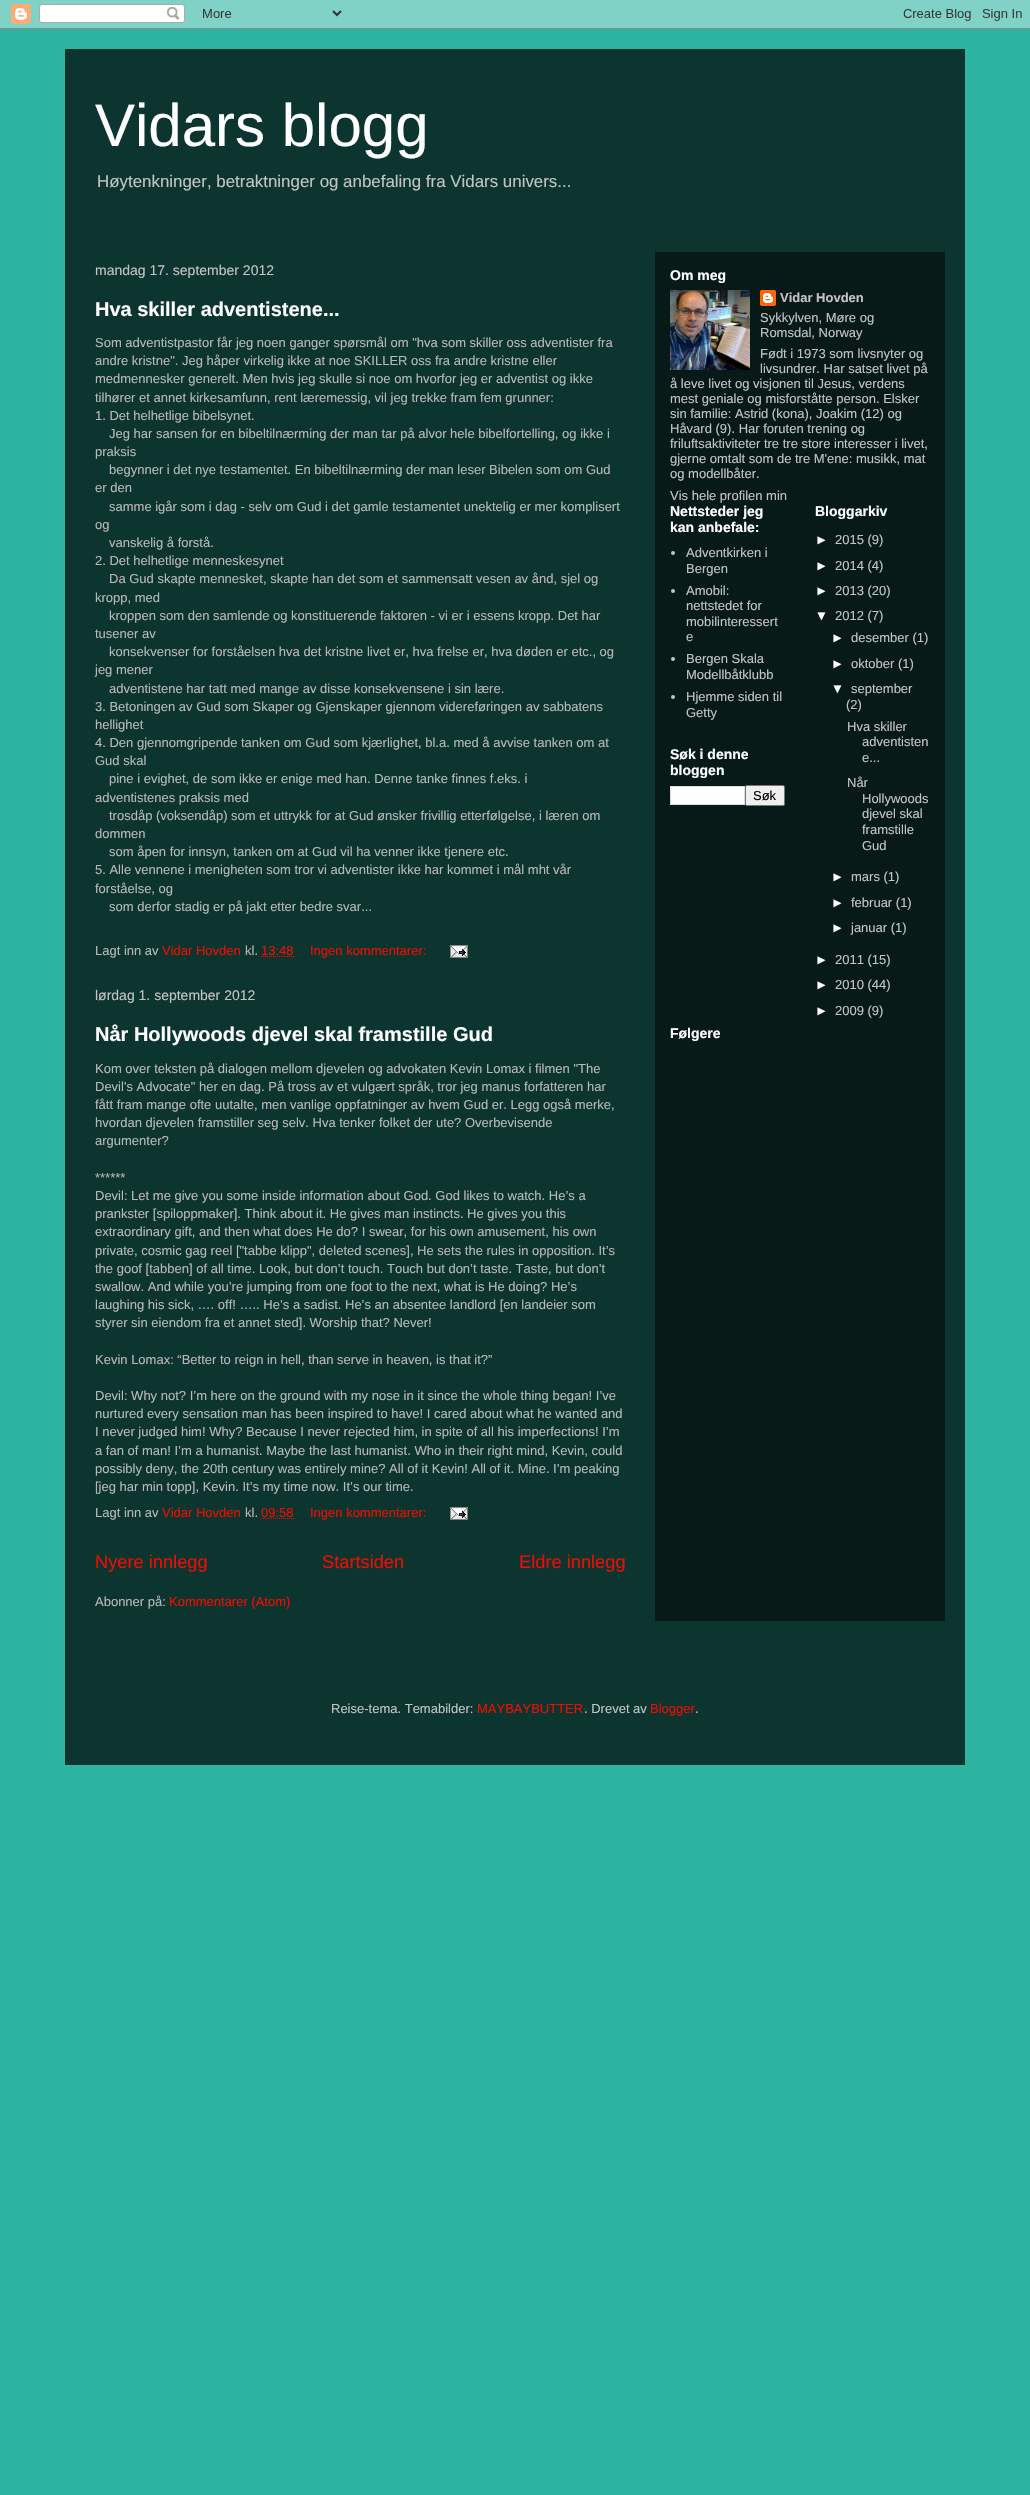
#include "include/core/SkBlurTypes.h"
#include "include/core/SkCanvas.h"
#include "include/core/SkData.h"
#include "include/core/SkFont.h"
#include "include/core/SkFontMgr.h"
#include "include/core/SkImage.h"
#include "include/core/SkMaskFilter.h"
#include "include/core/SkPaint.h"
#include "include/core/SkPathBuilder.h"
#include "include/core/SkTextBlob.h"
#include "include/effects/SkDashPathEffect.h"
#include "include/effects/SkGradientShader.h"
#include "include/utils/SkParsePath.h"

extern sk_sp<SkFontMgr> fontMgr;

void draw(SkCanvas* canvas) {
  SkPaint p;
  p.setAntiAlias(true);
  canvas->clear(SkColorSetRGB(44, 180, 160));
  canvas->drawImageRect(SkImages::DeferredFromEncodedData(SkData::MakeFromFileName("images/1.png")), SkRect::MakeLTRB(0, 0, 1030, 29), SkSamplingOptions());
  p.setColor(SkColorSetRGB(13, 53, 48));
  canvas->drawRect(SkRect::MakeLTRB(65, 49, 965, 1765), p);
  p.setColor(SkColorSetRGB(7, 26, 24));
  canvas->drawRect(SkRect::MakeLTRB(655, 252, 945, 1621), p);
  p.setStyle(SkPaint::kStroke_Style);
  p.setStrokeWidth(1);
  p.setColor(SkColorSetRGB(243, 10, 0));
  p.setPathEffect(SkDashPathEffect::Make({{1, 1}}, 0));
  canvas->drawPath(SkPathBuilder().moveTo(261, 956.5f).lineTo(294, 956.5f).detach(), p);
  p.setPathEffect(nullptr);
  canvas->drawImageRect(SkImages::DeferredFromEncodedData(SkData::MakeFromFileName("images/2.png")), SkRect::MakeLTRB(450, 945, 468, 958), SkSamplingOptions());
  p.setPathEffect(SkDashPathEffect::Make({{1, 1}}, 0));
  canvas->drawPath(SkPathBuilder().moveTo(261, 1518.5f).lineTo(294, 1518.5f).detach(), p);
  p.setPathEffect(nullptr);
  canvas->drawImageRect(SkImages::DeferredFromEncodedData(SkData::MakeFromFileName("images/2.png")), SkRect::MakeLTRB(450, 1507, 468, 1520), SkSamplingOptions());
  canvas->drawImageRect(SkImages::DeferredFromEncodedData(SkData::MakeFromFileName("images/3.png")), SkRect::MakeLTRB(670, 290, 750, 370), SkSamplingOptions());
  canvas->drawImageRect(SkImages::DeferredFromEncodedData(SkData::MakeFromFileName("images/4.png")), SkRect::MakeLTRB(760, 290, 776, 306), SkSamplingOptions());
  p.setStyle(SkPaint::kFill_Style);
  p.setColor(SkColorSetRGB(195, 195, 195));
  canvas->drawCircle(673, 553, 2, p);
  canvas->drawCircle(673, 591, 2, p);
  canvas->drawCircle(673, 659, 2, p);
  canvas->drawCircle(673, 697, 2, p);
  p.setColor(SK_ColorWHITE);
  canvas->drawRect(SkRect::MakeLTRB(670.5f, 786.5f, 744.5f, 804.5f), p);
  p.setStyle(SkPaint::kStroke_Style);
  p.setColor(SkColorSetRGB(221, 221, 221));
  canvas->drawRect(SkRect::MakeLTRB(670.5f, 786.5f, 744.5f, 804.5f), p);
  p.setStyle(SkPaint::kFill_Style);
  p.setColor(SkColorSetRGB(239, 239, 239));
  canvas->drawRoundRect(SkRect::MakeLTRB(745.5f, 785.5f, 784.5f, 805.5f), 1.5f, 1.5f, p);
  p.setStyle(SkPaint::kStroke_Style);
  p.setColor(SkColorSetRGB(118, 118, 118));
  canvas->drawRoundRect(SkRect::MakeLTRB(745.5f, 785.5f, 784.5f, 805.5f), 1.5f, 1.5f, p);
  SkFont font1(fontMgr->matchFamilyStyle("Liberation Sans", SkFontStyle::Normal()), 60);
  font1.setSubpixel(true);
  p.setStyle(SkPaint::kFill_Style);
  p.setColor(SK_ColorWHITE);
  canvas->drawString("Vidars blogg", 95, 146, font1, p);
  SkFont font2(fontMgr->matchFamilyStyle("Liberation Sans", SkFontStyle::Normal()), 16.9f);
  font2.setSubpixel(true);
  p.setColor(SkColorSetRGB(195, 195, 195));
  canvas->drawString("Høytenkninger, betraktninger og anbefaling fra Vidars univers...", 97, 187, font2, p);
  SkFont font3(fontMgr->matchFamilyStyle("Liberation Sans", SkFontStyle::Normal()), 14);
  font3.setSubpixel(true);
  canvas->drawString("mandag 17. september 2012", 95, 275, font3, p);
  SkFont font4(fontMgr->matchFamilyStyle("Liberation Sans", SkFontStyle::Bold()), 20);
  font4.setSubpixel(true);
  p.setColor(SK_ColorWHITE);
  canvas->drawString("Hva skiller adventistene...", 95, 316, font4, p);
  SkFont font5(fontMgr->matchFamilyStyle("Liberation Sans", SkFontStyle::Normal()), 13);
  font5.setSubpixel(true);
  p.setColor(SkColorSetRGB(184, 184, 184));
  canvas->drawString("Som adventistpastor får jeg noen ganger spørsmål om \"hva som skiller oss adventister fra", 95, 347, font5, p);
  canvas->drawString("andre kristne\". Jeg håper virkelig ikke at noe SKILLER oss fra andre kristne eller", 95, 365, font5, p);
  canvas->drawString("medmennesker generelt. Men hvis jeg skulle si noe om hvorfor jeg er adventist og ikke", 95, 383, font5, p);
  canvas->drawString("tilhører et annet kirkesamfunn, rent læremessig, vil jeg trekke fram fem grunner:", 95, 402, font5, p);
  canvas->drawString("1. Det helhetlige bibelsynet.", 95, 420, font5, p);
  canvas->drawString("Jeg har sansen for en bibeltilnærming der man tar på alvor hele bibelfortelling, og ikke i", 109, 438, font5, p);
  canvas->drawString("praksis", 95, 456, font5, p);
  canvas->drawString("begynner i det nye testamentet. En bibeltilnærming der man leser Bibelen som om Gud", 109, 474, font5, p);
  canvas->drawString("er den", 95, 492, font5, p);
  canvas->drawString("samme igår som i dag - selv om Gud i det gamle testamentet unektelig er mer komplisert", 109, 511, font5, p);
  canvas->drawString("og", 95, 529, font5, p);
  canvas->drawString("vanskelig å forstå.", 109, 547, font5, p);
  canvas->drawString("2. Det helhetlige menneskesynet", 95, 565, font5, p);
  canvas->drawString("Da Gud skapte mennesket, skapte han det som et sammensatt vesen av ånd, sjel og", 109, 583, font5, p);
  canvas->drawString("kropp, med", 95, 602, font5, p);
  canvas->drawString("kroppen som den samlende og konstituerende faktoren - vi er i essens kropp. Det har", 109, 620, font5, p);
  canvas->drawString("tusener av", 95, 638, font5, p);
  canvas->drawString("konsekvenser for forståelsen hva det kristne livet er, hva frelse er, hva døden er etc., og", 109, 656, font5, p);
  canvas->drawString("jeg mener", 95, 674, font5, p);
  canvas->drawString("adventistene har tatt med mange av disse konsekvensene i sin lære.", 109, 693, font5, p);
  canvas->drawString("3. Betoningen av Gud som Skaper og Gjenskaper gjennom videreføringen av sabbatens", 95, 711, font5, p);
  canvas->drawString("hellighet", 95, 729, font5, p);
  canvas->drawString("4. Den gjennomgripende tanken om Gud som kjærlighet, bl.a. med å avvise tanken om at", 95, 747, font5, p);
  canvas->drawString("Gud skal", 95, 765, font5, p);
  canvas->drawString("pine i evighet, de som ikke er enige med han. Denne tanke finnes f.eks. i", 109, 783, font5, p);
  canvas->drawString("adventistenes praksis med", 95, 802, font5, p);
  canvas->drawString("trosdåp (voksendåp) som et uttrykk for at Gud ønsker frivillig etterfølgelse, i læren om", 109, 820, font5, p);
  canvas->drawString("dommen", 95, 838, font5, p);
  canvas->drawString("som åpen for innsyn, tanken om at Gud vil ha venner ikke tjenere etc.", 109, 856, font5, p);
  canvas->drawString("5. Alle vennene i menigheten som tror vi adventister ikke har kommet i mål mht vår", 95, 874, font5, p);
  canvas->drawString("forståelse, og", 95, 893, font5, p);
  canvas->drawString("som derfor stadig er på jakt etter bedre svar...", 109, 911, font5, p);
  canvas->drawString("Lagt inn av", 95, 955, font5, p);
  p.setColor(SkColorSetRGB(243, 10, 0));
  canvas->drawString("Vidar Hovden", 162, 955, font5, p);
  p.setColor(SkColorSetRGB(184, 184, 184));
  canvas->drawString("kl.", 245, 955, font5, p);
  p.setColor(SkColorSetRGB(243, 10, 0));
  canvas->drawString("13:48", 261, 955, font5, p);
  canvas->drawString("Ingen kommentarer:", 310, 955, font5, p);
  p.setColor(SkColorSetRGB(195, 195, 195));
  canvas->drawString("lørdag 1. september 2012", 95, 1000, font3, p);
  p.setColor(SK_ColorWHITE);
  canvas->drawString("Når Hollywoods djevel skal framstille Gud", 95, 1041, font4, p);
  p.setColor(SkColorSetRGB(184, 184, 184));
  canvas->drawString("Kom over teksten på dialogen mellom djevelen og advokaten Kevin Lomax i filmen \"The", 95, 1073, font5, p);
  canvas->drawString("Devil's Advocate\" her en dag. På tross av et vulgært språk, tror jeg manus forfatteren har", 95, 1091, font5, p);
  canvas->drawString("fått fram mange ofte uutalte, men vanlige oppfatninger av hvem Gud er. Legg også merke,", 95, 1109, font5, p);
  canvas->drawString("hvordan djevelen framstiller seg selv. Hva tenker folket der ute? Overbevisende", 95, 1127, font5, p);
  canvas->drawString("argumenter?", 95, 1145, font5, p);
  canvas->drawString("******", 95, 1182, font5, p);
  canvas->drawString("Devil: Let me give you some inside information about God. God likes to watch. He’s a", 95, 1200, font5, p);
  canvas->drawString("prankster [spiloppmaker]. Think about it. He gives man instincts. He gives you this", 95, 1218, font5, p);
  canvas->drawString("extraordinary gift, and then what does He do? I swear, for his own amusement, his own", 95, 1236, font5, p);
  canvas->drawString("private, cosmic gag reel [\"tabbe klipp\", deleted scenes], He sets the rules in opposition. It’s", 95, 1255, font5, p);
  canvas->drawString("the goof [tabben] of all time. Look, but don’t touch. Touch but don’t taste. Taste, but don’t", 95, 1273, font5, p);
  canvas->drawString("swallow. And while you’re jumping from one foot to the next, what is He doing? He’s", 95, 1291, font5, p);
  canvas->drawString("laughing his sick, …. off! ….. He’s a sadist. He’s an absentee landlord [en landeier som", 95, 1309, font5, p);
  canvas->drawString("styrer sin eiendom fra et annet sted]. Worship that? Never!", 95, 1327, font5, p);
  canvas->drawString("Kevin Lomax: “Better to reign in hell, than serve in heaven, is that it?”", 95, 1364, font5, p);
  canvas->drawString("Devil: Why not? I’m here on the ground with my nose in it since the whole thing began! I’ve", 95, 1400, font5, p);
  canvas->drawString("nurtured every sensation man has been inspired to have! I cared about what he wanted and", 95, 1418, font5, p);
  canvas->drawString("I never judged him! Why? Because I never rejected him, in spite of all his imperfections! I’m", 95, 1436, font5, p);
  canvas->drawString("a fan of man! I’m a humanist. Maybe the last humanist. Who in their right mind, Kevin, could", 95, 1455, font5, p);
  canvas->drawString("possibly deny, the 20th century was entirely mine? All of it Kevin! All of it. Mine. I’m peaking", 95, 1473, font5, p);
  canvas->drawString("[jeg har min topp], Kevin. It’s my time now. It’s our time.", 95, 1491, font5, p);
  canvas->drawString("Lagt inn av", 95, 1517, font5, p);
  p.setColor(SkColorSetRGB(243, 10, 0));
  canvas->drawString("Vidar Hovden", 162, 1517, font5, p);
  p.setColor(SkColorSetRGB(184, 184, 184));
  canvas->drawString("kl.", 245, 1517, font5, p);
  p.setColor(SkColorSetRGB(243, 10, 0));
  canvas->drawString("09:58", 261, 1517, font5, p);
  canvas->drawString("Ingen kommentarer:", 310, 1517, font5, p);
  SkFont font6(fontMgr->matchFamilyStyle("Liberation Sans", SkFontStyle::Normal()), 18.25f);
  font6.setSubpixel(true);
  canvas->drawString("Nyere innlegg", 95, 1568, font6, p);
  canvas->drawString("Startsiden", 322, 1568, font6, p);
  canvas->drawString("Eldre innlegg", 519, 1568, font6, p);
  p.setColor(SkColorSetRGB(184, 184, 184));
  canvas->drawString("Abonner på:", 95, 1606, font5, p);
  p.setColor(SkColorSetRGB(243, 10, 0));
  canvas->drawString("Kommentarer (Atom)", 169, 1606, font5, p);
  SkFont font7(fontMgr->matchFamilyStyle("Liberation Sans", SkFontStyle::Bold()), 14);
  font7.setSubpixel(true);
  p.setColor(SK_ColorWHITE);
  canvas->drawString("Om meg", 670, 280, font7, p);
  SkFont font8(fontMgr->matchFamilyStyle("Liberation Sans", SkFontStyle::Bold()), 13);
  font8.setSubpixel(true);
  p.setColor(SkColorSetRGB(195, 195, 195));
  canvas->drawString("Vidar Hovden", 780, 302, font8, p);
  canvas->drawString("Sykkylven, Møre og", 760, 322, font5, p);
  canvas->drawString("Romsdal, Norway", 760, 337, font5, p);
  canvas->drawString("Født i 1973 som livsnyter og", 760, 358, font5, p);
  canvas->drawString("livsundrer. Har satset livet på", 760, 373, font5, p);
  canvas->drawString("å leve livet og visjonen til Jesus, verdens", 670, 388, font5, p);
  canvas->drawString("mest geniale og misforståtte person. Elsker", 670, 403, font5, p);
  canvas->drawString("sin familie: Astrid (kona), Joakim (12) og", 670, 418, font5, p);
  canvas->drawString("Håvard (9). Har foruten trening og", 670, 433, font5, p);
  canvas->drawString("friluftsaktiviteter tre tre store interesser i livet,", 670, 448, font5, p);
  canvas->drawString("gjerne omtalt som de tre M'ene: musikk, mat", 670, 463, font5, p);
  canvas->drawString("og modellbåter.", 670, 478, font5, p);
  canvas->drawString("Vis hele profilen min", 670, 500, font5, p);
  p.setColor(SK_ColorWHITE);
  canvas->drawString("Nettsteder jeg", 670, 516, font7, p);
  canvas->drawString("kan anbefale:", 670, 532, font7, p);
  p.setColor(SkColorSetRGB(195, 195, 195));
  canvas->drawString("Adventkirken i", 686, 557, font5, p);
  canvas->drawString("Bergen", 686, 573, font5, p);
  canvas->drawString("Amobil:", 686, 595, font5, p);
  canvas->drawString("nettstedet for", 686, 610, font5, p);
  canvas->drawString("mobilinteressert", 686, 626, font5, p);
  canvas->drawString("e", 686, 641, font5, p);
  canvas->drawString("Bergen Skala", 686, 663, font5, p);
  canvas->drawString("Modellbåtklubb", 686, 679, font5, p);
  canvas->drawString("Hjemme siden til", 686, 701, font5, p);
  canvas->drawString("Getty", 686, 717, font5, p);
  p.setColor(SK_ColorWHITE);
  canvas->drawString("Søk i denne", 670, 759, font7, p);
  canvas->drawString("bloggen", 670, 775, font7, p);
  p.setColor(SK_ColorBLACK);
  canvas->drawString("Søk", 753, 800, font5, p);
  p.setColor(SK_ColorWHITE);
  canvas->drawString("Bloggarkiv", 815, 516, font7, p);
  canvas->drawString("►", 815, 544, font5, p);
  p.setColor(SkColorSetRGB(195, 195, 195));
  canvas->drawString("2015 (9)", 835, 544, font5, p);
  p.setColor(SK_ColorWHITE);
  canvas->drawString("►", 815, 570, font5, p);
  p.setColor(SkColorSetRGB(195, 195, 195));
  canvas->drawString("2014 (4)", 835, 570, font5, p);
  p.setColor(SK_ColorWHITE);
  canvas->drawString("►", 815, 595, font5, p);
  p.setColor(SkColorSetRGB(195, 195, 195));
  canvas->drawString("2013 (20)", 835, 595, font5, p);
  p.setColor(SK_ColorWHITE);
  canvas->drawString("▼", 815, 620, font5, p);
  p.setColor(SkColorSetRGB(195, 195, 195));
  canvas->drawString("2012 (7)", 835, 620, font5, p);
  p.setColor(SK_ColorWHITE);
  canvas->drawString("►", 831, 642, font5, p);
  p.setColor(SkColorSetRGB(195, 195, 195));
  canvas->drawString("desember (1)", 851, 642, font5, p);
  p.setColor(SK_ColorWHITE);
  canvas->drawString("►", 831, 668, font5, p);
  p.setColor(SkColorSetRGB(195, 195, 195));
  canvas->drawString("oktober (1)", 851, 668, font5, p);
  p.setColor(SK_ColorWHITE);
  canvas->drawString("▼", 831, 693, font5, p);
  p.setColor(SkColorSetRGB(195, 195, 195));
  canvas->drawString("september", 851, 693, font5, p);
  canvas->drawString("(2)", 846, 709, font5, p);
  canvas->drawString("Hva skiller", 847, 731, font5, p);
  canvas->drawString("adventisten", 862, 746, font5, p);
  canvas->drawString("e...", 862, 762, font5, p);
  canvas->drawString("Når", 847, 787, font5, p);
  canvas->drawString("Hollywoods", 862, 803, font5, p);
  canvas->drawString("djevel skal", 862, 818, font5, p);
  canvas->drawString("framstille", 862, 834, font5, p);
  canvas->drawString("Gud", 862, 850, font5, p);
  p.setColor(SK_ColorWHITE);
  canvas->drawString("►", 831, 881, font5, p);
  p.setColor(SkColorSetRGB(195, 195, 195));
  canvas->drawString("mars (1)", 851, 881, font5, p);
  p.setColor(SK_ColorWHITE);
  canvas->drawString("►", 831, 907, font5, p);
  p.setColor(SkColorSetRGB(195, 195, 195));
  canvas->drawString("februar (1)", 851, 907, font5, p);
  p.setColor(SK_ColorWHITE);
  canvas->drawString("►", 831, 932, font5, p);
  p.setColor(SkColorSetRGB(195, 195, 195));
  canvas->drawString("januar (1)", 851, 932, font5, p);
  p.setColor(SK_ColorWHITE);
  canvas->drawString("►", 815, 964, font5, p);
  p.setColor(SkColorSetRGB(195, 195, 195));
  canvas->drawString("2011 (15)", 835, 964, font5, p);
  p.setColor(SK_ColorWHITE);
  canvas->drawString("►", 815, 989, font5, p);
  p.setColor(SkColorSetRGB(195, 195, 195));
  canvas->drawString("2010 (44)", 835, 989, font5, p);
  p.setColor(SK_ColorWHITE);
  canvas->drawString("►", 815, 1015, font5, p);
  p.setColor(SkColorSetRGB(195, 195, 195));
  canvas->drawString("2009 (9)", 835, 1015, font5, p);
  p.setColor(SK_ColorWHITE);
  canvas->drawString("Følgere", 670, 1038, font7, p);
  p.setColor(SkColorSetRGB(195, 195, 195));
  canvas->drawString("Reise-tema. Temabilder:", 331, 1713, font5, p);
  p.setColor(SkColorSetRGB(243, 10, 0));
  canvas->drawString("MAYBAYBUTTER", 477, 1713, font5, p);
  p.setColor(SkColorSetRGB(195, 195, 195));
  canvas->drawString(". Drevet av", 584, 1713, font5, p);
  p.setColor(SkColorSetRGB(243, 10, 0));
  canvas->drawString("Blogger", 650, 1713, font5, p);
  p.setColor(SkColorSetRGB(195, 195, 195));
  canvas->drawString(".", 695, 1713, font5, p);
}
